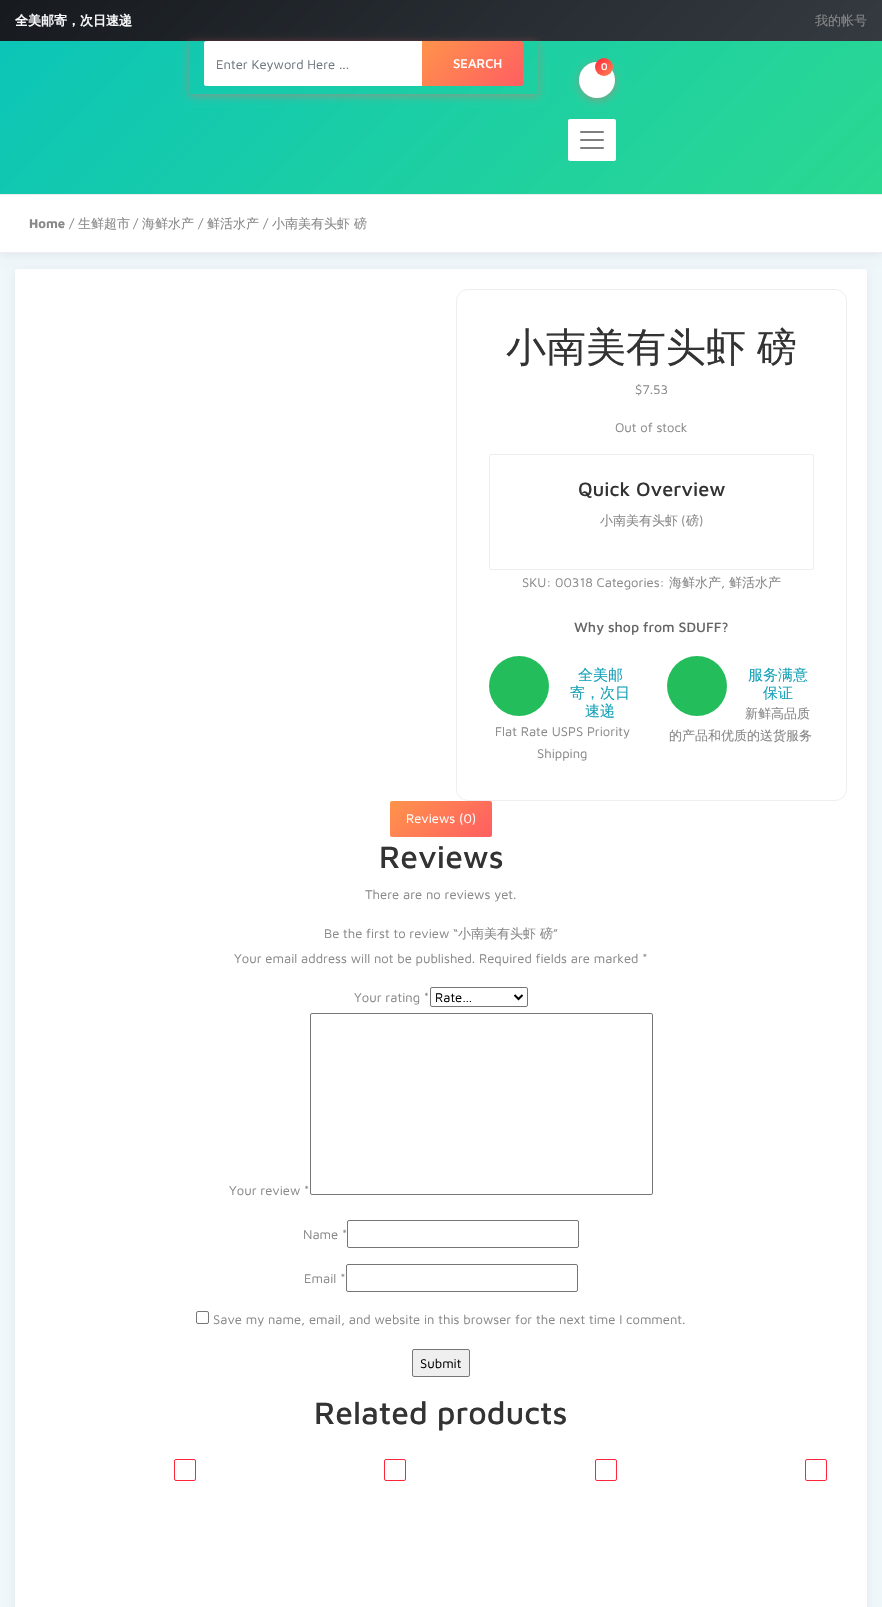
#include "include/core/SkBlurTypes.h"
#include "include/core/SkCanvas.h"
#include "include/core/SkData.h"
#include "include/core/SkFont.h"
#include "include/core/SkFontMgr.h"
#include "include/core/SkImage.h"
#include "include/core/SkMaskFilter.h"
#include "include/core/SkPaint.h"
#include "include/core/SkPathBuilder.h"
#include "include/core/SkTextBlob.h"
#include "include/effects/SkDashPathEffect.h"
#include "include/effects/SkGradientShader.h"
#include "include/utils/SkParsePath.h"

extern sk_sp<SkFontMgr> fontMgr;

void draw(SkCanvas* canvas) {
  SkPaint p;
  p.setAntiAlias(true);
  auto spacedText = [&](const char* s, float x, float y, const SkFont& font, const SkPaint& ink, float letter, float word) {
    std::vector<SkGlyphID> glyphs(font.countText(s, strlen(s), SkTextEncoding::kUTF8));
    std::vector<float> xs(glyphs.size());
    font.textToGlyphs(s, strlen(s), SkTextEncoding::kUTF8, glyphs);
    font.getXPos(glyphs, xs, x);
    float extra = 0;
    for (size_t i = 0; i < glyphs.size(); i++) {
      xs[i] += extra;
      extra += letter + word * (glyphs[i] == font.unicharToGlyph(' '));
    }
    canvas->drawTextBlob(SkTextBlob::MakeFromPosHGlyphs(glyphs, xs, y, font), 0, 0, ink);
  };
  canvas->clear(SkColorSetRGB(239, 247, 250));
  {
    const SkColor colors[] = {SkColorSetRGB(23, 27, 32), SkColorSetRGB(52, 58, 64)};
    const float stops[] = {0.01f, 1};
    const SkPoint ends[] = {{210, -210}, {672, 251}};
    p.setShader(SkGradientShader::MakeLinear(ends, colors, stops, 2, SkTileMode::kClamp));
    p.setAlpha(255);
  }
  canvas->drawRect(SkRect::MakeLTRB(0, 0, 882, 41), p);
  p.setShader(nullptr);
  p.setColor(SkColorSetARGB(15, 0, 0, 0));
  p.setMaskFilter(SkMaskFilter::MakeBlur(kNormal_SkBlurStyle, 4));
  canvas->drawRect(SkRect::MakeLTRB(0, 196, 882, 255), p);
  p.setMaskFilter(nullptr);
  {
    const SkColor colors[] = {SkColorSetRGB(12, 197, 183), SkColorSetRGB(43, 216, 145)};
    const float stops[] = {0, 1};
    const SkPoint ends[] = {{182, -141}, {700, 376}};
    p.setShader(SkGradientShader::MakeLinear(ends, colors, stops, 2, SkTileMode::kClamp));
    p.setAlpha(255);
  }
  canvas->drawRect(SkRect::MakeLTRB(0, 41, 882, 194), p);
  canvas->save();
  canvas->clipPath(SkPathBuilder(SkPathFillType::kEvenOdd).moveTo(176, 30).lineTo(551, 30).lineTo(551, 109).lineTo(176, 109).close().moveTo(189, 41).lineTo(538, 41).lineTo(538, 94).lineTo(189, 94).close().detach(), true);
  p.setShader(nullptr);
  p.setColor(SkColorSetARGB(117, 255, 97, 98));
  p.setMaskFilter(SkMaskFilter::MakeBlur(kNormal_SkBlurStyle, 4));
  canvas->drawRect(SkRect::MakeLTRB(189, 43, 538, 96), p);
  p.setMaskFilter(nullptr);
  canvas->restore();
  p.setColor(SK_ColorWHITE);
  canvas->drawPath(SkPathBuilder().moveTo(206, 41).lineTo(422, 41).lineTo(422, 86).lineTo(206, 86).cubicTo(205, 86, 204, 85, 204, 84).lineTo(204, 43).cubicTo(204, 42, 205, 41, 206, 41).close().detach(), p);
  {
    const SkColor colors[] = {SkColorSetRGB(255, 147, 75), SkColorSetRGB(255, 94, 98)};
    const float stops[] = {0, 1};
    const SkPoint ends[] = {{436, 27}, {509, 100}};
    p.setShader(SkGradientShader::MakeLinear(ends, colors, stops, 2, SkTileMode::kClamp));
    p.setAlpha(255);
  }
  canvas->drawPath(SkPathBuilder().moveTo(422, 41).lineTo(521, 41).cubicTo(522, 41, 523, 42, 523, 43).lineTo(523, 84).cubicTo(523, 85, 522, 86, 521, 86).lineTo(422, 86).close().detach(), p);
  p.setShader(nullptr);
  p.setColor(SkColorSetARGB(117, 255, 97, 98));
  p.setMaskFilter(SkMaskFilter::MakeBlur(kNormal_SkBlurStyle, 4));
  canvas->drawRoundRect(SkRect::MakeLTRB(579, 64, 615, 100), 18, 18, p);
  p.setMaskFilter(nullptr);
  p.setColor(SK_ColorWHITE);
  canvas->drawCircle(597, 80, 18, p);
  {
    const SkColor colors[] = {SkColorSetRGB(255, 37, 58), SkColorSetRGB(255, 132, 83)};
    const float stops[] = {0, 1};
    const SkPoint ends[] = {{595, 58}, {613, 76}};
    p.setShader(SkGradientShader::MakeLinear(ends, colors, stops, 2, SkTileMode::kClamp));
    p.setAlpha(255);
  }
  canvas->drawCircle(604, 67, 9, p);
  p.setShader(nullptr);
  p.setColor(SK_ColorWHITE);
  canvas->drawRoundRect(SkRect::MakeLTRB(568, 119, 616, 161), 2, 2, p);
  canvas->drawImageRect(SkImages::DeferredFromEncodedData(SkData::MakeFromFileName("images/1.png")), SkRect::MakeLTRB(580, 131, 604, 149), SkSamplingOptions());
  canvas->drawRect(SkRect::MakeLTRB(0, 195, 882, 252), p);
  p.setColor(SkColorSetRGB(236, 236, 236));
  canvas->drawRect(SkRect::MakeLTRB(0, 194, 882, 195), p);
  p.setColor(SkColorSetRGB(238, 238, 238));
  canvas->drawRect(SkRect::MakeLTRB(0, 252, 882, 253), p);
  p.setColor(SkColorSetARGB(15, 0, 0, 0));
  p.setMaskFilter(SkMaskFilter::MakeBlur(kNormal_SkBlurStyle, 4));
  canvas->drawRoundRect(SkRect::MakeLTRB(15, 271, 867, 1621), 2, 2, p);
  p.setMaskFilter(nullptr);
  p.setColor(SK_ColorWHITE);
  canvas->drawRoundRect(SkRect::MakeLTRB(15, 269, 867, 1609), 2, 2, p);
  p.setStyle(SkPaint::kStroke_Style);
  p.setStrokeWidth(1);
  p.setColor(SkColorSetRGB(238, 238, 238));
  canvas->drawRoundRect(SkRect::MakeLTRB(456.5f, 289.5f, 846.5f, 800.5f), 11.5f, 11.5f, p);
  canvas->drawRoundRect(SkRect::MakeLTRB(489.5f, 454.5f, 813.5f, 569.5f), 1.5f, 1.5f, p);
  p.setStyle(SkPaint::kFill_Style);
  p.setColor(SkColorSetRGB(35, 189, 91));
  canvas->drawCircle(519, 686, 30, p);
  canvas->drawCircle(697, 686, 30, p);
  {
    const SkColor colors[] = {SkColorSetRGB(255, 147, 75), SkColorSetRGB(255, 94, 98)};
    const float stops[] = {0, 1};
    const SkPoint ends[] = {{407, 785}, {476, 854}};
    p.setShader(SkGradientShader::MakeLinear(ends, colors, stops, 2, SkTileMode::kClamp));
    p.setAlpha(255);
  }
  canvas->drawRoundRect(SkRect::MakeLTRB(390, 801, 492, 837), 2, 2, p);
  p.setStyle(SkPaint::kStroke_Style);
  p.setShader(nullptr);
  p.setColor(SkColorSetRGB(118, 118, 118));
  canvas->drawRoundRect(SkRect::MakeLTRB(430.5f, 987.5f, 527.5f, 1006.5f), 1.5f, 1.5f, p);
  p.setStrokeWidth(2);
  p.setColor(SK_ColorBLACK);
  canvas->drawPath(SkPathBuilder().moveTo(514.5f, 995).lineTo(518.5f, 999).lineTo(522.5f, 995).detach(), p);
  p.setStrokeWidth(1);
  p.setColor(SkColorSetRGB(118, 118, 118));
  canvas->drawRoundRect(SkRect::MakeLTRB(310.5f, 1013.5f, 652.5f, 1194.5f), 1.5f, 1.5f, p);
  canvas->drawRoundRect(SkRect::MakeLTRB(347.5f, 1220.5f, 578.5f, 1247.5f), 1.5f, 1.5f, p);
  canvas->drawRoundRect(SkRect::MakeLTRB(346.5f, 1264.5f, 577.5f, 1291.5f), 1.5f, 1.5f, p);
  canvas->drawRoundRect(SkRect::MakeLTRB(196.5f, 1311.5f, 208.5f, 1323.5f), 1.5f, 1.5f, p);
  p.setStyle(SkPaint::kFill_Style);
  p.setColor(SkColorSetRGB(239, 239, 239));
  canvas->drawRoundRect(SkRect::MakeLTRB(412.5f, 1349.5f, 469.5f, 1376.5f), 1.5f, 1.5f, p);
  p.setStyle(SkPaint::kStroke_Style);
  p.setColor(SkColorSetRGB(118, 118, 118));
  canvas->drawRoundRect(SkRect::MakeLTRB(412.5f, 1349.5f, 469.5f, 1376.5f), 1.5f, 1.5f, p);
  p.setColor(SkColorSetRGB(255, 37, 58));
  canvas->drawRoundRect(SkRect::MakeLTRB(174.5f, 1459.5f, 195.5f, 1480.5f), 1.5f, 1.5f, p);
  canvas->drawRoundRect(SkRect::MakeLTRB(384.5f, 1459.5f, 405.5f, 1480.5f), 1.5f, 1.5f, p);
  canvas->drawRoundRect(SkRect::MakeLTRB(595.5f, 1459.5f, 616.5f, 1480.5f), 1.5f, 1.5f, p);
  canvas->drawRoundRect(SkRect::MakeLTRB(805.5f, 1459.5f, 826.5f, 1480.5f), 1.5f, 1.5f, p);
  SkFont font1(fontMgr->matchFamilyStyle("WenQuanYi Zen Hei", SkFontStyle::Bold()), 13);
  font1.setSubpixel(true);
  p.setStyle(SkPaint::kFill_Style);
  p.setColor(SkColorSetRGB(248, 249, 250));
  canvas->drawString("全美邮寄，次日速递", 15, 25, font1, p);
  SkFont font2(fontMgr->matchFamilyStyle("WenQuanYi Zen Hei", SkFontStyle(500, SkFontStyle::kNormal_Width, SkFontStyle::kUpright_Slant)), 13);
  font2.setSubpixel(true);
  p.setColor(SkColorSetRGB(136, 136, 136));
  canvas->drawString("我的帐号", 815, 25, font2, p);
  SkFont font3(fontMgr->matchFamilyStyle("Maven Pro", SkFontStyle::Normal()), 13);
  font3.setSubpixel(true);
  p.setColor(SkColorSetRGB(108, 117, 125));
  canvas->drawString("Enter Keyword Here ...", 216, 69, font3, p);
  SkFont font4(fontMgr->matchFamilyStyle("Maven Pro", SkFontStyle(500, SkFontStyle::kNormal_Width, SkFontStyle::kUpright_Slant)), 13);
  font4.setSubpixel(true);
  p.setColor(SK_ColorWHITE);
  canvas->drawString("SEARCH", 453, 68, font4, p);
  SkFont font5(fontMgr->matchFamilyStyle("Maven Pro", SkFontStyle(500, SkFontStyle::kNormal_Width, SkFontStyle::kUpright_Slant)), 10);
  font5.setSubpixel(true);
  canvas->drawString("0", 601, 70, font5, p);
  SkFont font6(fontMgr->matchFamilyStyle("Maven Pro", SkFontStyle::Bold()), 13);
  font6.setSubpixel(true);
  p.setColor(SkColorSetRGB(136, 136, 136));
  canvas->drawString("Home", 29, 228, font6, p);
  canvas->drawString("/", 69, 228, font3, p);
  canvas->drawString("生鲜超市", 78, 228, font2, p);
  canvas->drawString("/", 133, 228, font3, p);
  canvas->drawString("海鲜水产", 142, 228, font2, p);
  canvas->drawString("/", 198, 228, font3, p);
  canvas->drawString("鲜活水产", 207, 228, font2, p);
  canvas->drawString("/", 263, 228, font3, p);
  canvas->drawString("小南美有头虾 磅", 272, 228, font2, p);
  SkFont font7(fontMgr->matchFamilyStyle("WenQuanYi Zen Hei", SkFontStyle(500, SkFontStyle::kNormal_Width, SkFontStyle::kUpright_Slant)), 40);
  font7.setSubpixel(true);
  p.setColor(SkColorSetRGB(51, 51, 51));
  spacedText("小南美有头虾 磅", 506, 361, font7, p, 0, -1);
  p.setColor(SkColorSetRGB(136, 136, 136));
  canvas->drawString("$7.53", 635, 394, font3, p);
  canvas->drawString("Out of stock", 615, 432, font3, p);
  SkFont font8(fontMgr->matchFamilyStyle("Maven Pro", SkFontStyle(500, SkFontStyle::kNormal_Width, SkFontStyle::kUpright_Slant)), 20);
  font8.setSubpixel(true);
  p.setColor(SkColorSetRGB(51, 51, 51));
  canvas->drawString("Quick Overview", 578, 496, font8, p);
  p.setColor(SkColorSetRGB(136, 136, 136));
  canvas->drawString("小南美有头虾", 600, 525, font2, p);
  canvas->drawString("(", 681, 525, font3, p);
  canvas->drawString("磅", 686, 525, font2, p);
  canvas->drawString(")", 699, 525, font3, p);
  canvas->drawString("SKU: 00318 Categories:", 522, 587, font3, p);
  canvas->drawString("海鲜水产", 669, 587, font2, p);
  canvas->drawString(",", 721, 587, font3, p);
  canvas->drawString("鲜活水产", 729, 587, font2, p);
  SkFont font9(fontMgr->matchFamilyStyle("Maven Pro", SkFontStyle(500, SkFontStyle::kNormal_Width, SkFontStyle::kUpright_Slant)), 14);
  font9.setSubpixel(true);
  p.setColor(SkColorSetRGB(102, 102, 102));
  canvas->drawString("Why shop from SDUFF?", 574, 632, font9, p);
  SkFont font10(fontMgr->matchFamilyStyle("WenQuanYi Zen Hei", SkFontStyle(500, SkFontStyle::kNormal_Width, SkFontStyle::kUpright_Slant)), 15);
  font10.setSubpixel(true);
  p.setColor(SkColorSetRGB(23, 162, 184));
  canvas->drawString("全美邮", 578, 680, font10, p);
  canvas->drawString("寄，次日", 570, 698, font10, p);
  canvas->drawString("速递", 585, 716, font10, p);
  p.setColor(SkColorSetRGB(136, 136, 136));
  canvas->drawString("Flat Rate USPS Priority", 495, 736, font3, p);
  canvas->drawString("Shipping", 537, 758, font3, p);
  p.setColor(SkColorSetRGB(23, 162, 184));
  canvas->drawString("服务满意", 748, 680, font10, p);
  canvas->drawString("保证", 763, 698, font10, p);
  p.setColor(SkColorSetRGB(136, 136, 136));
  canvas->drawString("新鲜高品质", 745, 718, font2, p);
  canvas->drawString("的产品和优质的送货服务", 669, 740, font2, p);
  p.setColor(SK_ColorWHITE);
  canvas->drawString("Reviews (0)", 406, 823, font3, p);
  SkFont font11(fontMgr->matchFamilyStyle("Maven Pro", SkFontStyle(500, SkFontStyle::kNormal_Width, SkFontStyle::kUpright_Slant)), 32);
  font11.setSubpixel(true);
  p.setColor(SkColorSetRGB(51, 51, 51));
  canvas->drawString("Reviews", 379, 868, font11, p);
  p.setColor(SkColorSetRGB(136, 136, 136));
  canvas->drawString("There are no reviews yet.", 365, 899, font3, p);
  canvas->drawString("Be the first to review “", 324, 938, font3, p);
  canvas->drawString("小南美有头虾 磅", 458, 938, font2, p);
  canvas->drawString("”", 553, 938, font3, p);
  canvas->drawString("Your email address will not be published. Required fields are marked *", 234, 963, font3, p);
  canvas->drawString("Your rating *", 354, 1002, font3, p);
  p.setColor(SK_ColorBLACK);
  canvas->drawString("Rate…", 435, 1002, font3, p);
  p.setColor(SkColorSetRGB(136, 136, 136));
  canvas->drawString("Your review *", 229, 1195, font3, p);
  canvas->drawString("Name *", 303, 1239, font3, p);
  canvas->drawString("Email *", 304, 1283, font3, p);
  canvas->drawString("Save my name, email, and website in this browser for the next time I comment.", 213, 1324, font3, p);
  p.setColor(SK_ColorBLACK);
  canvas->drawString("Submit", 420, 1368, font3, p);
  p.setColor(SkColorSetRGB(51, 51, 51));
  canvas->drawString("Related products", 314, 1424, font11, p);
}
